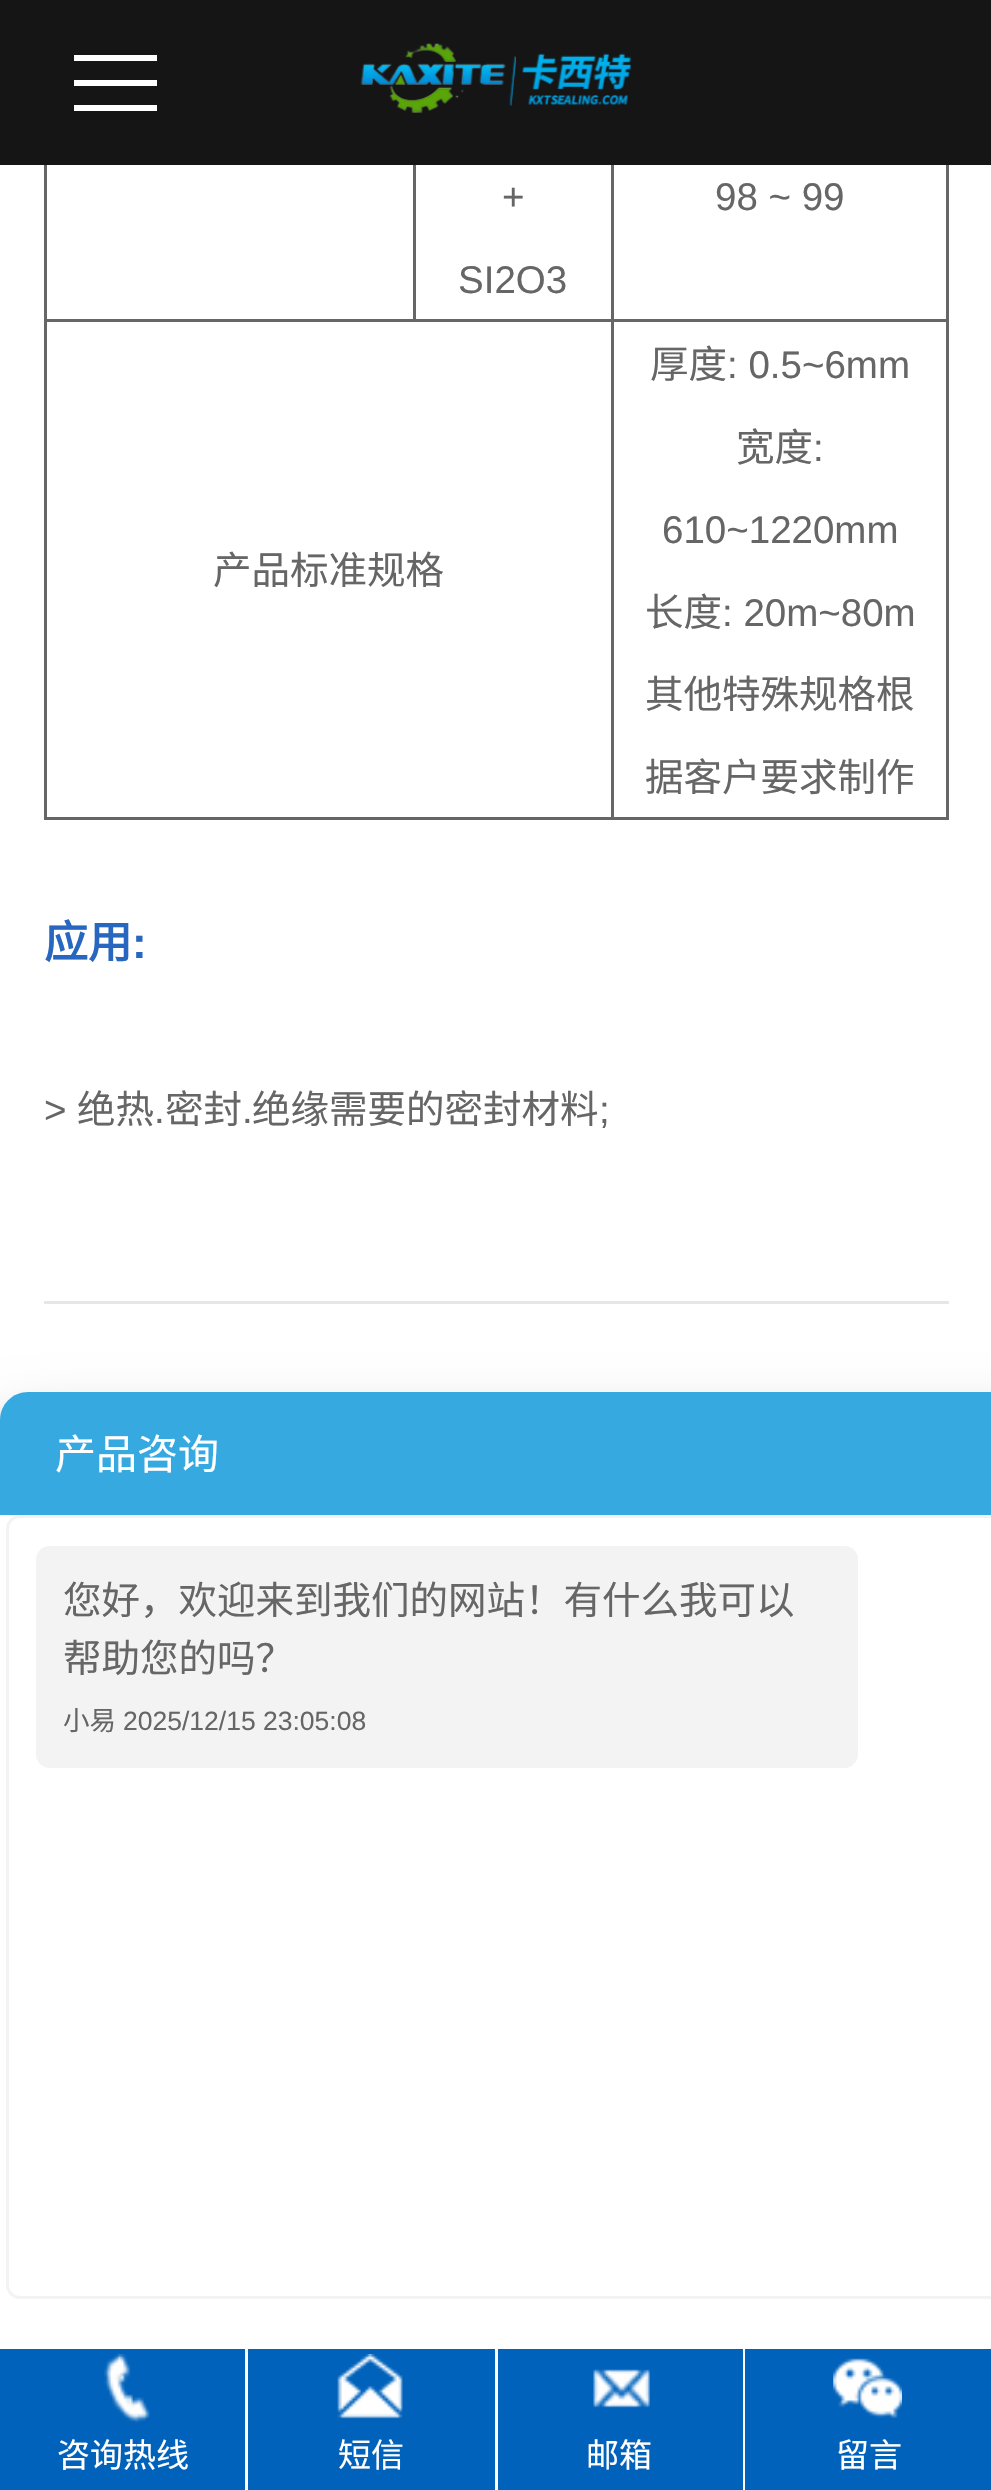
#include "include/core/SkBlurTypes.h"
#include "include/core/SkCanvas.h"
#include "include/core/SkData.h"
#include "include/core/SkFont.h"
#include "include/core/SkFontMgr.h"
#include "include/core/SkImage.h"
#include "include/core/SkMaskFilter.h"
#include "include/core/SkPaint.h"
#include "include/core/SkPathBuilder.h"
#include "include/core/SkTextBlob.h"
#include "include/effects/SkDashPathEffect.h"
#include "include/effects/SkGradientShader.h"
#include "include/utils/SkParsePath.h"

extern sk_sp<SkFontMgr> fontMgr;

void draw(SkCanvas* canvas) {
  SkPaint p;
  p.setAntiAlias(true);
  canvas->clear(SK_ColorWHITE);
  p.setColor(SkColorSetRGB(21, 21, 21));
  canvas->drawRect(SkRect::MakeLTRB(0, 0, 991, 165), p);
  p.setColor(SK_ColorWHITE);
  canvas->drawRect(SkRect::MakeLTRB(74, 55, 157, 61), p);
  canvas->drawRect(SkRect::MakeLTRB(74, 80, 157, 86), p);
  canvas->drawRect(SkRect::MakeLTRB(74, 105, 157, 111), p);
  canvas->drawImageRect(SkImages::DeferredFromEncodedData(SkData::MakeFromFileName("images/1.png")), SkRect::MakeLTRB(360, 43, 631, 113), SkSamplingOptions());
  p.setColor(SkColorSetRGB(102, 102, 102));
  canvas->drawRect(SkRect::MakeLTRB(611, 319, 949, 322), p);
  canvas->drawRect(SkRect::MakeLTRB(946, 165, 949, 820), p);
  canvas->drawRect(SkRect::MakeLTRB(611, 817, 949, 820), p);
  canvas->drawRect(SkRect::MakeLTRB(611, 319, 614, 820), p);
  canvas->drawRect(SkRect::MakeLTRB(44, 319, 613, 322), p);
  canvas->drawRect(SkRect::MakeLTRB(413, 165, 416, 322), p);
  canvas->drawRect(SkRect::MakeLTRB(611, 165, 614, 322), p);
  canvas->drawRect(SkRect::MakeLTRB(44, 817, 613, 820), p);
  canvas->drawRect(SkRect::MakeLTRB(44, 165, 47, 820), p);
  p.setColor(SkColorSetRGB(230, 230, 230));
  canvas->drawRect(SkRect::MakeLTRB(44, 1301, 949, 1304), p);
  p.setColor(SkColorSetARGB(59, 0, 0, 0));
  p.setMaskFilter(SkMaskFilter::MakeBlur(kNormal_SkBlurStyle, 8));
  canvas->drawRoundRect(SkRect::MakeLTRB(0, 1408, 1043, 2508), 28, 28, p);
  p.setMaskFilter(nullptr);
  p.setColor(SkColorSetARGB(48, 0, 0, 0));
  p.setMaskFilter(SkMaskFilter::MakeBlur(kNormal_SkBlurStyle, 27.5f));
  canvas->drawRoundRect(SkRect::MakeLTRB(0, 1419, 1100, 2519), 28, 28, p);
  p.setMaskFilter(nullptr);
  p.setColor(SK_ColorWHITE);
  canvas->drawPath(SkPathBuilder().moveTo(28, 1392).lineTo(991, 1392).cubicTo(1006.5f, 1392, 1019, 1404.5f, 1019, 1420).lineTo(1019, 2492).lineTo(0, 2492).lineTo(0, 1420).cubicTo(0, 1404.5f, 12.5f, 1392, 28, 1392).close().detach(), p);
  p.setColor(SkColorSetRGB(54, 169, 225));
  canvas->drawPath(SkPathBuilder().moveTo(28, 1392).lineTo(991, 1392).cubicTo(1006.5f, 1392, 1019, 1404.5f, 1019, 1420).lineTo(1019, 1515).lineTo(0, 1515).lineTo(0, 1420).cubicTo(0, 1404.5f, 12.5f, 1392, 28, 1392).close().detach(), p);
  p.setStyle(SkPaint::kStroke_Style);
  p.setStrokeWidth(3);
  p.setColor(SkColorSetRGB(243, 243, 243));
  canvas->drawRoundRect(SkRect::MakeLTRB(7.5f, 1516.5f, 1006.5f, 2297.5f), 12.5f, 12.5f, p);
  p.setStyle(SkPaint::kFill_Style);
  canvas->drawRoundRect(SkRect::MakeLTRB(36, 1546, 858, 1768), 14, 14, p);
  p.setColor(SkColorSetRGB(1, 98, 187));
  canvas->drawRect(SkRect::MakeLTRB(0, 2349, 245, 2490), p);
  canvas->drawImageRect(SkImages::DeferredFromEncodedData(SkData::MakeFromFileName("images/2.png")), SkRect::MakeLTRB(104, 2354, 150, 2423), SkSamplingOptions());
  canvas->drawRect(SkRect::MakeLTRB(248, 2349, 495, 2490), p);
  canvas->drawImageRect(SkImages::DeferredFromEncodedData(SkData::MakeFromFileName("images/3.png")), SkRect::MakeLTRB(337, 2354, 403, 2419), SkSamplingOptions());
  canvas->drawRect(SkRect::MakeLTRB(498, 2349, 743, 2490), p);
  canvas->drawImageRect(SkImages::DeferredFromEncodedData(SkData::MakeFromFileName("images/4.png")), SkRect::MakeLTRB(593, 2369, 650, 2408), SkSamplingOptions());
  canvas->drawRect(SkRect::MakeLTRB(745, 2349, 991, 2490), p);
  canvas->drawImageRect(SkImages::DeferredFromEncodedData(SkData::MakeFromFileName("images/5.png")), SkRect::MakeLTRB(833, 2358, 902, 2418), SkSamplingOptions());
  SkFont font1(fontMgr->matchFamilyStyle("Liberation Sans", SkFontStyle::Normal()), 38.5f);
  font1.setSubpixel(true);
  p.setColor(SkColorSetRGB(102, 102, 102));
  canvas->drawString("+", 502, 210, font1, p);
  canvas->drawString("SI2O3", 458, 293, font1, p);
  canvas->drawString("98 ~ 99", 715, 210, font1, p);
  SkFont font2(fontMgr->matchFamilyStyle("Noto Sans CJK SC", SkFontStyle::Normal()), 38.5f);
  font2.setSubpixel(true);
  canvas->drawString("产品标准规格", 213, 584, font2, p);
  canvas->drawString("厚度", 650, 378, font2, p);
  canvas->drawString(": 0.5~6mm", 727, 378, font1, p);
  canvas->drawString("宽度", 736, 461, font2, p);
  canvas->drawString(":", 813, 461, font1, p);
  canvas->drawString("610~1220mm", 662, 543, font1, p);
  canvas->drawString("长度", 645, 626, font2, p);
  canvas->drawString(": 20m~80m", 722, 626, font1, p);
  canvas->drawString("其他特殊规格根", 645, 708, font2, p);
  canvas->drawString("据客户要求制作", 645, 791, font2, p);
  SkFont font3(fontMgr->matchFamilyStyle("Noto Sans CJK SC", SkFontStyle::Bold()), 44);
  font3.setSubpixel(true);
  p.setColor(SkColorSetRGB(39, 103, 191));
  canvas->drawString("应用", 44, 958, font3, p);
  SkFont font4(fontMgr->matchFamilyStyle("Liberation Sans", SkFontStyle::Bold()), 44);
  font4.setSubpixel(true);
  canvas->drawString(":", 132, 958, font4, p);
  p.setColor(SkColorSetRGB(102, 102, 102));
  canvas->drawString(">", 44, 1123, font1, p);
  canvas->drawString("绝热", 77, 1123, font2, p);
  canvas->drawString(".", 154, 1123, font1, p);
  canvas->drawString("密封", 165, 1123, font2, p);
  canvas->drawString(".", 242, 1123, font1, p);
  canvas->drawString("绝缘需要的密封材料", 252, 1123, font2, p);
  canvas->drawString(";", 599, 1123, font1, p);
  SkFont font5(fontMgr->matchFamilyStyle("Noto Sans CJK SC", SkFontStyle::Normal()), 41);
  font5.setSubpixel(true);
  p.setColor(SK_ColorWHITE);
  canvas->drawString("产品咨询", 55, 1469, font5, p);
  p.setColor(SkColorSetRGB(102, 102, 102));
  canvas->drawString("您好，欢迎来到我们的网站！有什么我可以", 63, 1614, font2, p);
  canvas->drawString("帮助您的吗？", 63, 1672, font2, p);
  SkFont font6(fontMgr->matchFamilyStyle("Noto Sans CJK SC", SkFontStyle::Normal()), 26.5f);
  font6.setSubpixel(true);
  canvas->drawString("小易", 63, 1730, font6, p);
  SkFont font7(fontMgr->matchFamilyStyle("Liberation Sans", SkFontStyle::Normal()), 26.5f);
  font7.setSubpixel(true);
  canvas->drawString("2025/12/15 23:05:08", 123, 1730, font7, p);
  SkFont font8(fontMgr->matchFamilyStyle("Noto Sans CJK SC", SkFontStyle::Normal()), 33);
  font8.setSubpixel(true);
  p.setColor(SK_ColorWHITE);
  canvas->drawString("咨询热线", 57, 2467, font8, p);
  canvas->drawString("短信", 338, 2467, font8, p);
  canvas->drawString("邮箱", 586, 2467, font8, p);
  canvas->drawString("留言", 836, 2467, font8, p);
}
